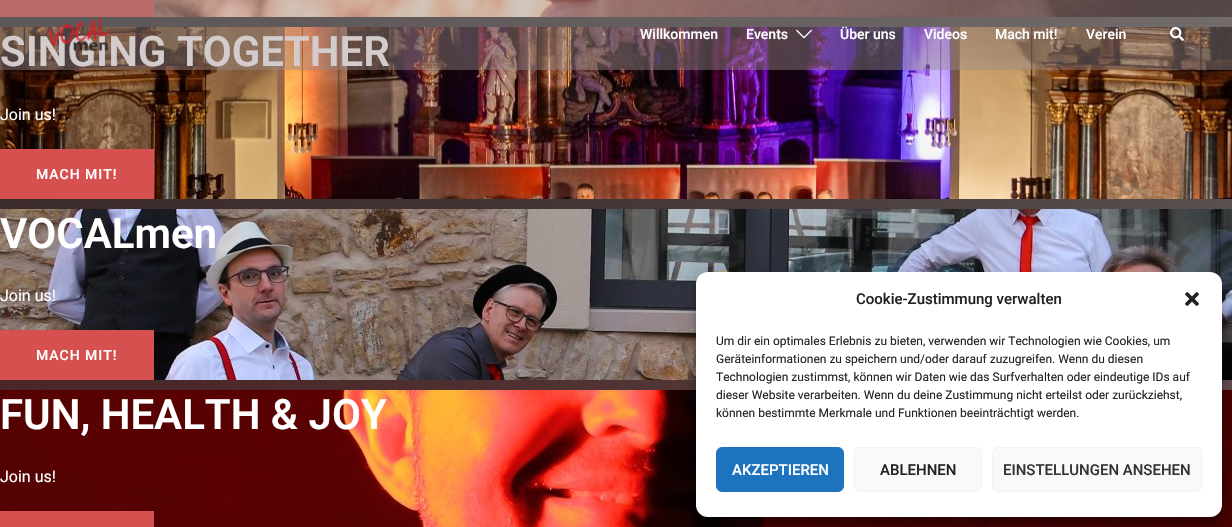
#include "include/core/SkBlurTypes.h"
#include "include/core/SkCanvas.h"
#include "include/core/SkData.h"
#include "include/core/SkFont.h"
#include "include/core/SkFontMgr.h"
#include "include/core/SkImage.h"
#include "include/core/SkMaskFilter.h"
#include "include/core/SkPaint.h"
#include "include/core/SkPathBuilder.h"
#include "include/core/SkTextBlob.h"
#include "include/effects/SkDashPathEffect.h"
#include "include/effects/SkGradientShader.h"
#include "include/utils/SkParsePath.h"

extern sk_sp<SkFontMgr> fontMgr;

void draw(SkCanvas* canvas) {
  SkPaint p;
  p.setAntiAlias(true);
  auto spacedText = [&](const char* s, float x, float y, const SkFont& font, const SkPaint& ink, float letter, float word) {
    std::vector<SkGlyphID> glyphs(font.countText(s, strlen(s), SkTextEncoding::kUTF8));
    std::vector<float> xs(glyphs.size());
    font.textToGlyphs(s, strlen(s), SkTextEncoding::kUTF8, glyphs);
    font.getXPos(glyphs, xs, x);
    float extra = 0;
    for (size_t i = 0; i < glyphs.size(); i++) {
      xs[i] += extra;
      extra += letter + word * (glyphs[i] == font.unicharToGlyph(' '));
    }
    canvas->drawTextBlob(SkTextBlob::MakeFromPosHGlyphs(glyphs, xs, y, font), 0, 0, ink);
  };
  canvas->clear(SK_ColorWHITE);
  canvas->drawImageRect(SkImages::DeferredFromEncodedData(SkData::MakeFromFileName("images/1.png")), SkRect::MakeLTRB(0, 17, 1232, 390), SkSamplingOptions());
  canvas->drawImageRect(SkImages::DeferredFromEncodedData(SkData::MakeFromFileName("images/5.png")), SkRect::MakeLTRB(154, 0, 1232, 17), SkSamplingOptions());
  p.setColor(SkColorSetRGB(214, 80, 80));
  canvas->drawRect(SkRect::MakeLTRB(0, 0, 154, 17), p);
  canvas->drawImageRect(SkImages::DeferredFromEncodedData(SkData::MakeFromFileName("images/6.png")), SkRect::MakeLTRB(0, 27, 1232, 199), SkSamplingOptions());
  canvas->drawRect(SkRect::MakeLTRB(0, 149, 154, 199), p);
  canvas->drawImageRect(SkImages::DeferredFromEncodedData(SkData::MakeFromFileName("images/7.png")), SkRect::MakeLTRB(0, 209, 1232, 380), SkSamplingOptions());
  canvas->drawRect(SkRect::MakeLTRB(0, 330, 154, 380), p);
  canvas->drawImageRect(SkImages::DeferredFromEncodedData(SkData::MakeFromFileName("images/8.png")), SkRect::MakeLTRB(0, 390, 1232, 527), SkSamplingOptions());
  canvas->drawRect(SkRect::MakeLTRB(0, 511, 154, 527), p);
  p.setColor(SkColorSetARGB(59, 0, 0, 0));
  p.setMaskFilter(SkMaskFilter::MakeBlur(kNormal_SkBlurStyle, 3));
  canvas->drawRoundRect(SkRect::MakeLTRB(696, 278, 1222, 523), 12, 12, p);
  p.setMaskFilter(nullptr);
  p.setColor(SkColorSetARGB(48, 0, 0, 0));
  p.setMaskFilter(SkMaskFilter::MakeBlur(kNormal_SkBlurStyle, 10));
  canvas->drawRoundRect(SkRect::MakeLTRB(696, 282, 1222, 527), 12, 12, p);
  p.setMaskFilter(nullptr);
  p.setColor(SK_ColorWHITE);
  canvas->drawRoundRect(SkRect::MakeLTRB(696, 272, 1222, 517), 12, 12, p);
  canvas->drawImageRect(SkImages::DeferredFromEncodedData(SkData::MakeFromFileName("images/9.png")), SkRect::MakeLTRB(1185, 292, 1199, 306), SkSamplingOptions());
  p.setColor(SkColorSetRGB(30, 115, 190));
  canvas->drawRoundRect(SkRect::MakeLTRB(716.5f, 447.5f, 843.5f, 491.5f), 5.5f, 5.5f, p);
  p.setStyle(SkPaint::kStroke_Style);
  p.setStrokeWidth(1);
  canvas->drawRoundRect(SkRect::MakeLTRB(716.5f, 447.5f, 843.5f, 491.5f), 5.5f, 5.5f, p);
  p.setStyle(SkPaint::kFill_Style);
  p.setColor(SkColorSetRGB(249, 249, 249));
  canvas->drawRoundRect(SkRect::MakeLTRB(854.5f, 447.5f, 981.5f, 491.5f), 5.5f, 5.5f, p);
  p.setStyle(SkPaint::kStroke_Style);
  p.setColor(SkColorSetRGB(242, 242, 242));
  canvas->drawRoundRect(SkRect::MakeLTRB(854.5f, 447.5f, 981.5f, 491.5f), 5.5f, 5.5f, p);
  p.setStyle(SkPaint::kFill_Style);
  p.setColor(SkColorSetRGB(249, 249, 249));
  canvas->drawRoundRect(SkRect::MakeLTRB(992.5f, 447.5f, 1201.5f, 491.5f), 5.5f, 5.5f, p);
  p.setStyle(SkPaint::kStroke_Style);
  p.setColor(SkColorSetRGB(242, 242, 242));
  canvas->drawRoundRect(SkRect::MakeLTRB(992.5f, 447.5f, 1201.5f, 491.5f), 5.5f, 5.5f, p);
  SkFont font1(fontMgr->matchFamilyStyle("Roboto", SkFontStyle(600, SkFontStyle::kNormal_Width, SkFontStyle::kUpright_Slant)), 42);
  font1.setSubpixel(true);
  p.setStyle(SkPaint::kFill_Style);
  p.setColor(SK_ColorWHITE);
  canvas->drawString("SINGING TOGETHER", 0, 66, font1, p);
  p.setColor(SkColorSetARGB(112, 153, 138, 138));
  canvas->drawRect(SkRect::MakeLTRB(0, 0, 1232, 70), p);
  canvas->drawImageRect(SkImages::DeferredFromEncodedData(SkData::MakeFromFileName("images/4.png")), SkRect::MakeLTRB(1170, 27, 1184, 41), SkSamplingOptions());
  SkFont font2(fontMgr->matchFamilyStyle("Roboto", SkFontStyle(500, SkFontStyle::kNormal_Width, SkFontStyle::kUpright_Slant)), 14);
  font2.setSubpixel(true);
  p.setColor(SK_ColorWHITE);
  canvas->drawString("Verein", 1086, 39, font2, p);
  canvas->drawString("Mach mit!", 995, 39, font2, p);
  canvas->drawString("Videos", 924, 39, font2, p);
  canvas->drawString("Über uns", 840, 39, font2, p);
  canvas->drawImageRect(SkImages::DeferredFromEncodedData(SkData::MakeFromFileName("images/3.png")), SkRect::MakeLTRB(796, 29, 812, 39), SkSamplingOptions());
  canvas->drawString("Events", 746, 39, font2, p);
  canvas->drawString("Willkommen", 640, 39, font2, p);
  canvas->drawImageRect(SkImages::DeferredFromEncodedData(SkData::MakeFromFileName("images/2.png")), SkRect::MakeLTRB(48, 17, 110, 52), SkSamplingOptions());
  SkFont font3(fontMgr->matchFamilyStyle("Roboto", SkFontStyle::Normal()), 16);
  font3.setSubpixel(true);
  canvas->drawString("Join us!", 0, 120, font3, p);
  spacedText("MACH MIT!", 36, 179, font2, p, 1, 0);
  canvas->drawString("VOCALmen", 0, 248, font1, p);
  canvas->drawString("Join us!", 0, 301, font3, p);
  spacedText("MACH MIT!", 36, 360, font2, p, 1, 0);
  canvas->drawString("FUN, HEALTH & JOY", 0, 429, font1, p);
  canvas->drawString("Join us!", 0, 482, font3, p);
  SkFont font4(fontMgr->matchFamilyStyle("Roboto", SkFontStyle(500, SkFontStyle::kNormal_Width, SkFontStyle::kUpright_Slant)), 15);
  font4.setSubpixel(true);
  p.setColor(SkColorSetRGB(34, 34, 34));
  canvas->drawString("Cookie-Zustimmung verwalten", 856, 304, font4, p);
  SkFont font5(fontMgr->matchFamilyStyle("Roboto", SkFontStyle::Normal()), 12);
  font5.setSubpixel(true);
  canvas->drawString("Um dir ein optimales Erlebnis zu bieten, verwenden wir Technologien wie Cookies, um", 716, 345, font5, p);
  canvas->drawString("Geräteinformationen zu speichern und/oder darauf zuzugreifen. Wenn du diesen", 716, 363, font5, p);
  canvas->drawString("Technologien zustimmst, können wir Daten wie das Surfverhalten oder eindeutige IDs auf", 716, 381, font5, p);
  canvas->drawString("dieser Website verarbeiten. Wenn du deine Zustimmung nicht erteilst oder zurückziehst,", 716, 399, font5, p);
  canvas->drawString("können bestimmte Merkmale und Funktionen beeinträchtigt werden.", 716, 417, font5, p);
  p.setColor(SK_ColorWHITE);
  canvas->drawString("AKZEPTIEREN", 732, 475, font4, p);
  p.setColor(SkColorSetRGB(34, 34, 34));
  canvas->drawString("ABLEHNEN", 880, 475, font4, p);
  p.setColor(SkColorSetRGB(51, 51, 51));
  canvas->drawString("EINSTELLUNGEN ANSEHEN", 1003, 475, font4, p);
}
